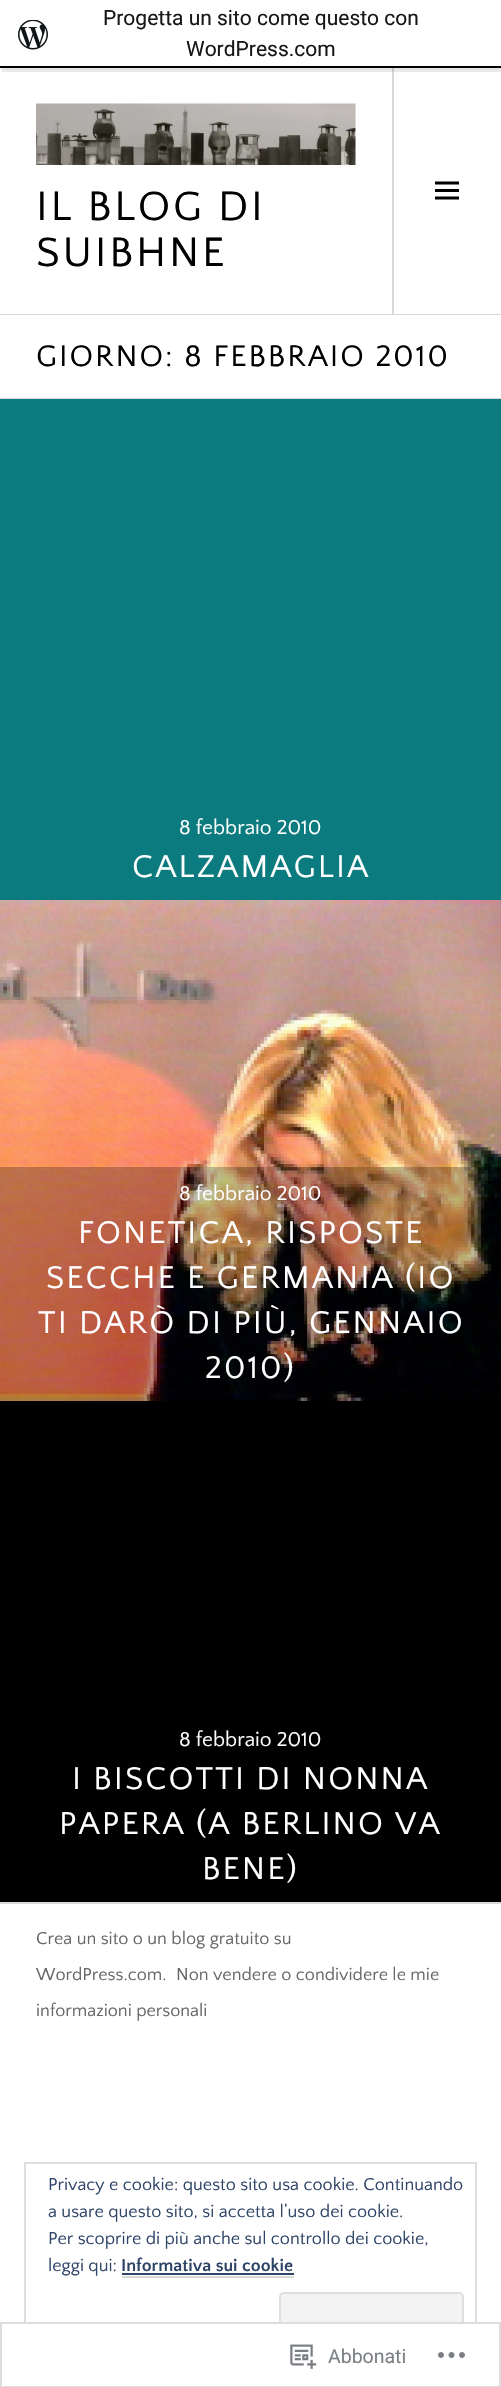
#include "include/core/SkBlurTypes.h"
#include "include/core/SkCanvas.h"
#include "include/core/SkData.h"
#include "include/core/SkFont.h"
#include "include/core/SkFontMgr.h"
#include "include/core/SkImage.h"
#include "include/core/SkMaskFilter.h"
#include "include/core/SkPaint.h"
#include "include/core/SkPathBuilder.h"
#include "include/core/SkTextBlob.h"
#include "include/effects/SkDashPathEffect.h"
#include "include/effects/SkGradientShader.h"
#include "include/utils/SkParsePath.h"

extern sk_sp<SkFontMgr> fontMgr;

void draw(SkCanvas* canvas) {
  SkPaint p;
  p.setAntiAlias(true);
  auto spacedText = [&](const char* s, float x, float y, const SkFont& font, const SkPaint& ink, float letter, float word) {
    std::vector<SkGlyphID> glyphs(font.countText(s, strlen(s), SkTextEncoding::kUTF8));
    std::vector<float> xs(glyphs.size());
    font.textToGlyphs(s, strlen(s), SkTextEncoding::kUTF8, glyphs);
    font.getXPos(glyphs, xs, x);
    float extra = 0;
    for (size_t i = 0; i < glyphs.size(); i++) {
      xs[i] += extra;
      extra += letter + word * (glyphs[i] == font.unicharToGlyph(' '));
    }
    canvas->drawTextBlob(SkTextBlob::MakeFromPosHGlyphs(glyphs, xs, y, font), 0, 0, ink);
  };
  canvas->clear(SK_ColorWHITE);
  p.setColor(SkColorSetRGB(217, 217, 217));
  canvas->drawRect(SkRect::MakeLTRB(392, 68, 394, 314), p);
  p.setColor(SkColorSetARGB(13, 0, 0, 0));
  p.setMaskFilter(SkMaskFilter::MakeBlur(kNormal_SkBlurStyle, 1.5f));
  canvas->drawRect(SkRect::MakeLTRB(0, 2, 501, 69), p);
  p.setMaskFilter(nullptr);
  p.setColor(SkColorSetARGB(20, 0, 0, 0));
  canvas->drawPath(SkPathBuilder().moveTo(2, 68).lineTo(2, 72).lineTo(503, 72).lineTo(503, 5).lineTo(501, 5).lineTo(501, 68).close().detach(), p);
  p.setColor(SK_ColorWHITE);
  canvas->drawRect(SkRect::MakeLTRB(0, 1, 501, 66), p);
  canvas->drawImageRect(SkImages::DeferredFromEncodedData(SkData::MakeFromFileName("images/1.png")), SkRect::MakeLTRB(18, 20, 48, 50), SkSamplingOptions());
  p.setColor(SK_ColorBLACK);
  canvas->drawRect(SkRect::MakeLTRB(0, 66, 501, 68), p);
  p.setColor(SkColorSetRGB(217, 217, 217));
  canvas->drawRect(SkRect::MakeLTRB(0, 314, 501, 315), p);
  canvas->drawImageRect(SkImages::DeferredFromEncodedData(SkData::MakeFromFileName("images/2.png")), SkRect::MakeLTRB(36, 103, 356, 165), SkSamplingOptions());
  canvas->drawImageRect(SkImages::DeferredFromEncodedData(SkData::MakeFromFileName("images/3.png")), SkRect::MakeLTRB(435, 181, 459, 200), SkSamplingOptions());
  canvas->drawRect(SkRect::MakeLTRB(0, 398, 501, 399), p);
  p.setColor(SkColorSetRGB(11, 123, 128));
  canvas->drawRect(SkRect::MakeLTRB(0, 399, 501, 900), p);
  canvas->drawImageRect(SkImages::DeferredFromEncodedData(SkData::MakeFromFileName("images/4.png")), SkRect::MakeLTRB(0, 900, 501, 1401), SkSamplingOptions());
  p.setColor(SkColorSetARGB(64, 0, 0, 0));
  canvas->drawRect(SkRect::MakeLTRB(0, 1167, 501, 1401), p);
  p.setColor(SK_ColorBLACK);
  canvas->drawRect(SkRect::MakeLTRB(0, 1401, 501, 1902), p);
  p.setColor(SkColorSetRGB(217, 217, 217));
  canvas->drawRect(SkRect::MakeLTRB(0, 1902, 501, 1904), p);
  p.setStyle(SkPaint::kStroke_Style);
  p.setStrokeWidth(2);
  p.setColor(SkColorSetRGB(222, 222, 222));
  canvas->drawRect(SkRect::MakeLTRB(25, 2163, 476, 2363), p);
  p.setStyle(SkPaint::kFill_Style);
  p.setColor(SkColorSetRGB(217, 217, 217));
  canvas->drawRect(SkRect::MakeLTRB(122, 2276, 294, 2278), p);
  p.setColor(SkColorSetRGB(46, 68, 103));
  canvas->drawRect(SkRect::MakeLTRB(122, 2273, 294, 2275), p);
  p.setColor(SkColorSetRGB(243, 243, 243));
  canvas->drawRoundRect(SkRect::MakeLTRB(280, 2293, 463, 2350), 4, 4, p);
  p.setStyle(SkPaint::kStroke_Style);
  p.setColor(SkColorSetRGB(222, 222, 222));
  canvas->drawRoundRect(SkRect::MakeLTRB(280, 2293, 463, 2350), 4, 4, p);
  p.setStyle(SkPaint::kFill_Style);
  p.setColor(SkColorSetARGB(250, 255, 255, 255));
  canvas->drawRect(SkRect::MakeLTRB(24, 2322, 477, 2364), p);
  p.setStyle(SkPaint::kStroke_Style);
  p.setColor(SkColorSetARGB(250, 220, 220, 222));
  canvas->drawRect(SkRect::MakeLTRB(1, 2323, 500, 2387), p);
  canvas->drawImageRect(SkImages::DeferredFromEncodedData(SkData::MakeFromFileName("images/5.png")), SkRect::MakeLTRB(290, 2344, 317, 2369), SkSamplingOptions());
  canvas->drawImageRect(SkImages::DeferredFromEncodedData(SkData::MakeFromFileName("images/6.png")), SkRect::MakeLTRB(438, 2352, 465, 2358), SkSamplingOptions());
  SkFont font1(fontMgr->matchFamilyStyle("Roboto", SkFontStyle::Normal()), 21);
  font1.setSubpixel(true);
  p.setStyle(SkPaint::kFill_Style);
  p.setColor(SkColorSetRGB(23, 23, 23));
  canvas->drawString("Progetta un sito come questo con", 103, 25, font1, p);
  canvas->drawString("WordPress.com", 186, 56, font1, p);
  SkFont font2(fontMgr->matchFamilyStyle("Quattrocento Sans", SkFontStyle::Normal()), 43);
  font2.setSubpixel(true);
  p.setColor(SK_ColorBLACK);
  spacedText("IL BLOG DI", 36, 220, font2, p, 2.75f, 0);
  spacedText("SUIBHNE", 36, 266, font2, p, 2.75f, 0);
  SkFont font3(fontMgr->matchFamilyStyle("Quattrocento Sans", SkFontStyle::Normal()), 31.25f);
  font3.setSubpixel(true);
  spacedText("GIORNO: 8 FEBBRAIO 2010", 36, 366, font3, p, 1.95f, 0);
  SkFont font4(fontMgr->matchFamilyStyle("Quattrocento Sans", SkFontStyle::Normal()), 21);
  font4.setSubpixel(true);
  p.setColor(SK_ColorWHITE);
  canvas->drawString("8 febbraio 2010", 179, 834, font4, p);
  SkFont font5(fontMgr->matchFamilyStyle("Quattrocento Sans", SkFontStyle::Normal()), 33);
  font5.setSubpixel(true);
  spacedText("CALZAMAGLIA", 132, 877, font5, p, 2.1f, 0);
  canvas->drawString("8 febbraio 2010", 179, 1200, font4, p);
  spacedText("FONETICA, RISPOSTE", 78, 1243, font5, p, 2.1f, 0);
  spacedText("SECCHE E GERMANIA (IO", 46, 1288, font5, p, 2.1f, 0);
  spacedText("TI DARÒ DI PIÙ, GENNAIO", 38, 1333, font5, p, 2.1f, 0);
  spacedText("2010)", 205, 1378, font5, p, 2.1f, 0);
  canvas->drawString("8 febbraio 2010", 179, 1746, font4, p);
  spacedText("I BISCOTTI DI NONNA", 72, 1789, font5, p, 2.1f, 0);
  spacedText("PAPERA (A BERLINO VA", 59, 1834, font5, p, 2.1f, 0);
  spacedText("BENE)", 202, 1879, font5, p, 2.1f, 0);
  SkFont font6(fontMgr->matchFamilyStyle("Quattrocento Sans", SkFontStyle::Normal()), 18);
  font6.setSubpixel(true);
  p.setColor(SkColorSetRGB(102, 102, 102));
  canvas->drawString("Crea un sito o un blog gratuito su", 36, 1944, font6, p);
  canvas->drawString("WordPress.com.", 36, 1980, font6, p);
  canvas->drawString("Non vendere o condividere le mie", 176, 1980, font6, p);
  canvas->drawString("informazioni personali", 36, 2016, font6, p);
  p.setColor(SkColorSetRGB(46, 68, 103));
  canvas->drawString("Privacy e cookie: questo sito usa cookie. Continuando", 48, 2190, font6, p);
  canvas->drawString("a usare questo sito, si accetta l’uso dei cookie.", 48, 2217, font6, p);
  canvas->drawString("Per scoprire di più anche sul controllo dei cookie,", 48, 2244, font6, p);
  canvas->drawString("leggi qui:", 48, 2271, font6, p);
  SkFont font7(fontMgr->matchFamilyStyle("Quattrocento Sans", SkFontStyle::Bold()), 18);
  font7.setSubpixel(true);
  canvas->drawString("Informativa sui cookie", 121, 2271, font7, p);
  SkFont font8(fontMgr->matchFamilyStyle("Roboto", SkFontStyle::Normal()), 19.5f);
  font8.setSubpixel(true);
  p.setColor(SkColorSetRGB(123, 127, 132));
  canvas->drawString("Abbonati", 328, 2363, font8, p);
}
